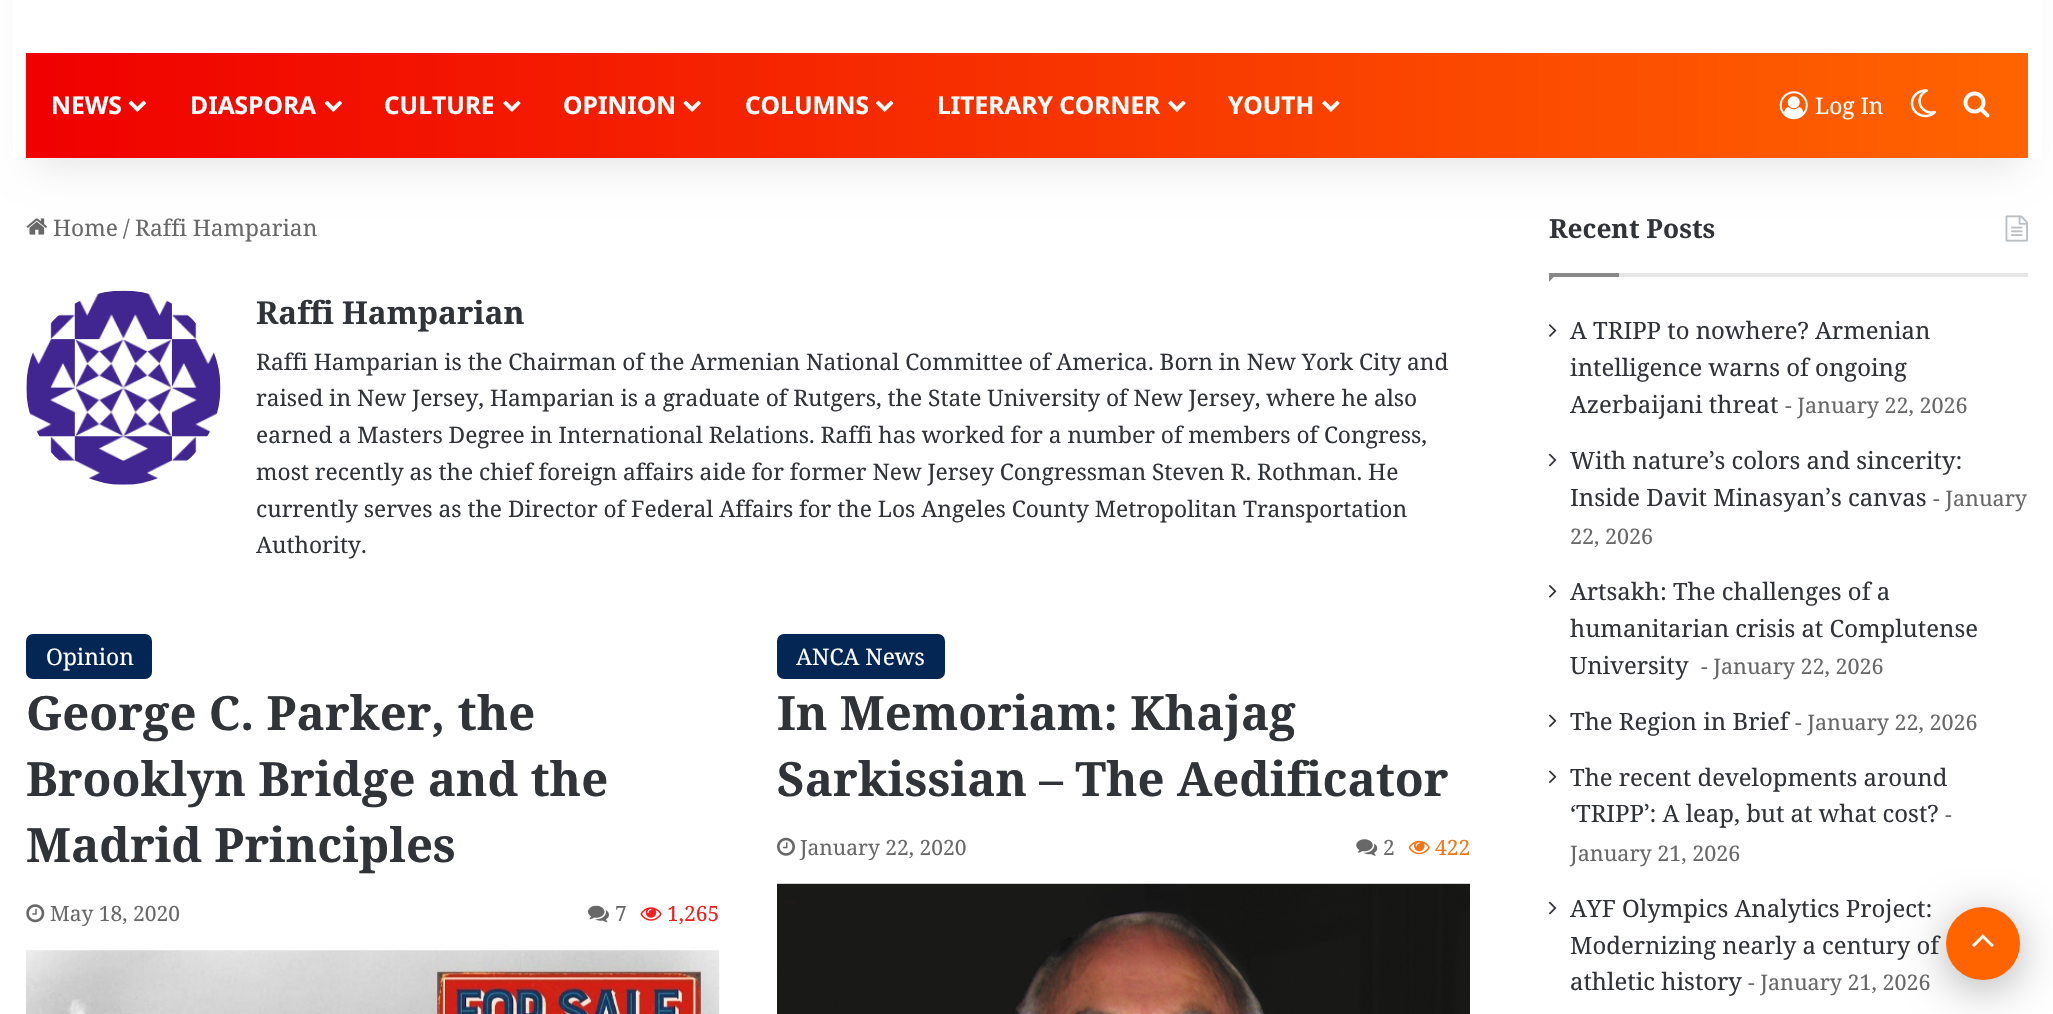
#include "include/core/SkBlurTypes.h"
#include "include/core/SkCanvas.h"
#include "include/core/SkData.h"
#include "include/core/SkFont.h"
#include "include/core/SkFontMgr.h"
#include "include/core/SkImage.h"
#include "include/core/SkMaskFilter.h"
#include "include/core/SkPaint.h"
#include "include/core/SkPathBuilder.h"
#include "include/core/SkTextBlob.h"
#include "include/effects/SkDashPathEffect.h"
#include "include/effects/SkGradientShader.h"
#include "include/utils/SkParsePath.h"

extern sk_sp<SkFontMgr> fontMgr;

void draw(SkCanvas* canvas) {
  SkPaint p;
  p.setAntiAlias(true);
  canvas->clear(SK_ColorWHITE);
  canvas->drawImageRect(SkImages::DeferredFromEncodedData(SkData::MakeFromFileName("images/11.png")), SkRect::MakeLTRB(26, 218, 47, 235), SkSamplingOptions());
  canvas->drawImageRect(SkImages::DeferredFromEncodedData(SkData::MakeFromFileName("images/21.png")), SkRect::MakeLTRB(2005, 215, 2028, 242), SkSamplingOptions());
  p.setColor(SkColorSetARGB(26, 0, 0, 0));
  p.setMaskFilter(SkMaskFilter::MakeBlur(kNormal_SkBlurStyle, 17.5f));
  canvas->drawRect(SkRect::MakeLTRB(35, -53, 2020, 166), p);
  p.setMaskFilter(nullptr);
  p.setColor(SK_ColorWHITE);
  canvas->drawRect(SkRect::MakeLTRB(13, 0, 2042, 158), p);
  {
    const SkColor colors[] = {SkColorSetRGB(240, 0, 0), SkColorSetRGB(255, 100, 0)};
    const float stops[] = {0, 1};
    const SkPoint ends[] = {{26, 105}, {2028, 105}};
    p.setShader(SkGradientShader::MakeLinear(ends, colors, stops, 2, SkTileMode::kClamp));
    p.setAlpha(255);
  }
  canvas->drawRect(SkRect::MakeLTRB(26, 53, 2028, 158), p);
  canvas->drawImageRect(SkImages::DeferredFromEncodedData(SkData::MakeFromFileName("images/1.png")), SkRect::MakeLTRB(128, 100, 146, 112), SkSamplingOptions());
  canvas->drawImageRect(SkImages::DeferredFromEncodedData(SkData::MakeFromFileName("images/2.png")), SkRect::MakeLTRB(324, 100, 342, 112), SkSamplingOptions());
  canvas->drawImageRect(SkImages::DeferredFromEncodedData(SkData::MakeFromFileName("images/3.png")), SkRect::MakeLTRB(503, 100, 521, 112), SkSamplingOptions());
  canvas->drawImageRect(SkImages::DeferredFromEncodedData(SkData::MakeFromFileName("images/4.png")), SkRect::MakeLTRB(683, 100, 701, 112), SkSamplingOptions());
  canvas->drawImageRect(SkImages::DeferredFromEncodedData(SkData::MakeFromFileName("images/5.png")), SkRect::MakeLTRB(876, 100, 894, 112), SkSamplingOptions());
  canvas->drawImageRect(SkImages::DeferredFromEncodedData(SkData::MakeFromFileName("images/6.png")), SkRect::MakeLTRB(1168, 100, 1186, 112), SkSamplingOptions());
  canvas->drawImageRect(SkImages::DeferredFromEncodedData(SkData::MakeFromFileName("images/7.png")), SkRect::MakeLTRB(1322, 100, 1340, 112), SkSamplingOptions());
  canvas->drawImageRect(SkImages::DeferredFromEncodedData(SkData::MakeFromFileName("images/8.png")), SkRect::MakeLTRB(1779, 91, 1808, 120), SkSamplingOptions());
  canvas->drawImageRect(SkImages::DeferredFromEncodedData(SkData::MakeFromFileName("images/9.png")), SkRect::MakeLTRB(1910, 89, 1936, 118), SkSamplingOptions());
  canvas->drawImageRect(SkImages::DeferredFromEncodedData(SkData::MakeFromFileName("images/10.png")), SkRect::MakeLTRB(1963, 91, 1990, 118), SkSamplingOptions());
  canvas->drawImageRect(SkImages::DeferredFromEncodedData(SkData::MakeFromFileName("images/12.png")), SkRect::MakeLTRB(26, 290, 221, 485), SkSamplingOptions());
  p.setShader(nullptr);
  p.setColor(SkColorSetRGB(3, 38, 85));
  canvas->drawRoundRect(SkRect::MakeLTRB(26, 634, 152, 679), 7, 7, p);
  canvas->drawImageRect(SkImages::DeferredFromEncodedData(SkData::MakeFromFileName("images/13.png")), SkRect::MakeLTRB(26, 904, 45, 923), SkSamplingOptions());
  canvas->drawImageRect(SkImages::DeferredFromEncodedData(SkData::MakeFromFileName("images/14.png")), SkRect::MakeLTRB(588, 905, 609, 923), SkSamplingOptions());
  canvas->drawImageRect(SkImages::DeferredFromEncodedData(SkData::MakeFromFileName("images/15.png")), SkRect::MakeLTRB(640, 907, 662, 921), SkSamplingOptions());
  canvas->drawImageRect(SkImages::DeferredFromEncodedData(SkData::MakeFromFileName("images/16.png")), SkRect::MakeLTRB(26, 950, 720, 1014), SkSamplingOptions());
  canvas->drawRoundRect(SkRect::MakeLTRB(777, 634, 945, 679), 7, 7, p);
  canvas->drawImageRect(SkImages::DeferredFromEncodedData(SkData::MakeFromFileName("images/17.png")), SkRect::MakeLTRB(777, 837, 795, 856), SkSamplingOptions());
  canvas->drawImageRect(SkImages::DeferredFromEncodedData(SkData::MakeFromFileName("images/18.png")), SkRect::MakeLTRB(1356, 839, 1378, 856), SkSamplingOptions());
  canvas->drawImageRect(SkImages::DeferredFromEncodedData(SkData::MakeFromFileName("images/19.png")), SkRect::MakeLTRB(1408, 840, 1430, 855), SkSamplingOptions());
  canvas->drawImageRect(SkImages::DeferredFromEncodedData(SkData::MakeFromFileName("images/20.png")), SkRect::MakeLTRB(777, 883, 1470, 1014), SkSamplingOptions());
  p.setColor(SkColorSetRGB(230, 230, 230));
  canvas->drawRect(SkRect::MakeLTRB(1619, 273, 2028, 277), p);
  p.setColor(SkColorSetRGB(137, 137, 137));
  canvas->drawPath(SkPathBuilder().moveTo(1549, 273).lineTo(1557.5f, 273).lineTo(1549, 282).close().detach(), p);
  canvas->drawRect(SkRect::MakeLTRB(1549, 273, 1619, 277), p);
  canvas->drawImageRect(SkImages::DeferredFromEncodedData(SkData::MakeFromFileName("images/22.png")), SkRect::MakeLTRB(1548, 324, 1557, 337), SkSamplingOptions());
  canvas->drawImageRect(SkImages::DeferredFromEncodedData(SkData::MakeFromFileName("images/23.png")), SkRect::MakeLTRB(1548, 453, 1557, 467), SkSamplingOptions());
  canvas->drawImageRect(SkImages::DeferredFromEncodedData(SkData::MakeFromFileName("images/24.png")), SkRect::MakeLTRB(1548, 585, 1557, 598), SkSamplingOptions());
  canvas->drawImageRect(SkImages::DeferredFromEncodedData(SkData::MakeFromFileName("images/25.png")), SkRect::MakeLTRB(1548, 714, 1557, 728), SkSamplingOptions());
  canvas->drawImageRect(SkImages::DeferredFromEncodedData(SkData::MakeFromFileName("images/25.png")), SkRect::MakeLTRB(1548, 770, 1557, 784), SkSamplingOptions());
  canvas->drawImageRect(SkImages::DeferredFromEncodedData(SkData::MakeFromFileName("images/23.png")), SkRect::MakeLTRB(1548, 901, 1557, 915), SkSamplingOptions());
  p.setColor(SkColorSetARGB(77, 0, 0, 0));
  p.setMaskFilter(SkMaskFilter::MakeBlur(kNormal_SkBlurStyle, 22));
  canvas->drawRoundRect(SkRect::MakeLTRB(1946, 915, 2020, 989), 37, 37, p);
  p.setMaskFilter(nullptr);
  p.setColor(SkColorSetRGB(255, 100, 0));
  canvas->drawRoundRect(SkRect::MakeLTRB(1946, 907, 2020, 980), 36.5f, 36.5f, p);
  canvas->drawImageRect(SkImages::DeferredFromEncodedData(SkData::MakeFromFileName("images/26.png")), SkRect::MakeLTRB(1972, 934, 1994, 947), SkSamplingOptions());
  SkFont font1(fontMgr->matchFamilyStyle("Noto Sans Armenian", SkFontStyle::Bold()), 24.5f);
  font1.setSubpixel(true);
  p.setColor(SK_ColorWHITE);
  canvas->drawString("NEWS", 51, 114, font1, p);
  canvas->drawString("DIASPORA", 190, 114, font1, p);
  canvas->drawString("CULTURE", 384, 114, font1, p);
  canvas->drawString("OPINION", 563, 114, font1, p);
  canvas->drawString("COLUMNS", 745, 114, font1, p);
  canvas->drawString("LITERARY CORNER", 937, 114, font1, p);
  canvas->drawString("YOUTH", 1228, 114, font1, p);
  SkFont font2(fontMgr->matchFamilyStyle("Noto Serif Armenian", SkFontStyle::Normal()), 22.75f);
  font2.setSubpixel(true);
  canvas->drawString("Log In", 1815, 114, font2, p);
  p.setColor(SkColorSetRGB(104, 104, 104));
  canvas->drawString("Home", 53, 236, font2, p);
  canvas->drawString("/", 123, 236, font2, p);
  canvas->drawString("Raffi Hamparian", 135, 236, font2, p);
  SkFont font3(fontMgr->matchFamilyStyle("Noto Serif Armenian", SkFontStyle::Bold()), 31.5f);
  font3.setSubpixel(true);
  p.setColor(SkColorSetRGB(48, 51, 56));
  canvas->drawString("Raffi Hamparian", 256, 324, font3, p);
  canvas->drawString("Raffi Hamparian is the Chairman of the Armenian National Committee of America. Born in New York City and", 256, 370, font2, p);
  canvas->drawString("raised in New Jersey, Hamparian is a graduate of Rutgers, the State University of New Jersey, where he also", 256, 406, font2, p);
  canvas->drawString("earned a Masters Degree in International Relations. Raffi has worked for a number of members of Congress,", 256, 443, font2, p);
  canvas->drawString("most recently as the chief foreign affairs aide for former New Jersey Congressman Steven R. Rothman. He", 256, 480, font2, p);
  canvas->drawString("currently serves as the Director of Federal Affairs for the Los Angeles County Metropolitan Transportation", 256, 517, font2, p);
  canvas->drawString("Authority.", 256, 553, font2, p);
  p.setColor(SK_ColorWHITE);
  canvas->drawString("Opinion", 46, 665, font2, p);
  SkFont font4(fontMgr->matchFamilyStyle("Noto Serif Armenian", SkFontStyle::Bold()), 47.25f);
  font4.setSubpixel(true);
  p.setColor(SkColorSetRGB(48, 51, 56));
  canvas->drawString("George C. Parker, the", 26, 730, font4, p);
  canvas->drawString("Brooklyn Bridge and the", 26, 796, font4, p);
  canvas->drawString("Madrid Principles", 26, 862, font4, p);
  SkFont font5(fontMgr->matchFamilyStyle("Noto Serif Armenian", SkFontStyle::Normal()), 21);
  font5.setSubpixel(true);
  p.setColor(SkColorSetRGB(104, 104, 104));
  canvas->drawString("May 18, 2020", 50, 921, font5, p);
  canvas->drawString("7", 615, 921, font5, p);
  p.setColor(SkColorSetRGB(241, 32, 32));
  canvas->drawString("1,265", 667, 921, font5, p);
  p.setColor(SK_ColorWHITE);
  canvas->drawString("ANCA News", 796, 665, font2, p);
  p.setColor(SkColorSetRGB(48, 51, 56));
  canvas->drawString("In Memoriam: Khajag", 777, 730, font4, p);
  canvas->drawString("Sarkissian – The Aedificator", 777, 796, font4, p);
  p.setColor(SkColorSetRGB(104, 104, 104));
  canvas->drawString("January 22, 2020", 800, 855, font5, p);
  canvas->drawString("2", 1383, 855, font5, p);
  p.setColor(SkColorSetRGB(244, 118, 20));
  canvas->drawString("422", 1435, 855, font5, p);
  SkFont font6(fontMgr->matchFamilyStyle("Noto Serif Armenian", SkFontStyle::Bold()), 26.25f);
  font6.setSubpixel(true);
  p.setColor(SkColorSetRGB(48, 51, 56));
  canvas->drawString("Recent Posts", 1549, 238, font6, p);
  SkFont font7(fontMgr->matchFamilyStyle("Noto Serif Armenian", SkFontStyle::Normal()), 23.9f);
  font7.setSubpixel(true);
  canvas->drawString("A TRIPP to nowhere? Armenian", 1570, 339, font7, p);
  canvas->drawString("intelligence warns of ongoing", 1570, 376, font7, p);
  canvas->drawString("Azerbaijani threat", 1570, 413, font7, p);
  SkFont font8(fontMgr->matchFamilyStyle("Noto Serif Armenian", SkFontStyle::Normal()), 21.5f);
  font8.setSubpixel(true);
  p.setColor(SkColorSetRGB(104, 104, 104));
  canvas->drawString("- January 22, 2026", 1785, 413, font8, p);
  p.setColor(SkColorSetRGB(48, 51, 56));
  canvas->drawString("With nature’s colors and sincerity:", 1570, 469, font7, p);
  canvas->drawString("Inside Davit Minasyan’s canvas", 1570, 506, font7, p);
  p.setColor(SkColorSetRGB(104, 104, 104));
  canvas->drawString("- January", 1933, 506, font8, p);
  canvas->drawString("22, 2026", 1570, 544, font8, p);
  p.setColor(SkColorSetRGB(48, 51, 56));
  canvas->drawString("Artsakh: The challenges of a", 1570, 600, font7, p);
  canvas->drawString("humanitarian crisis at Complutense", 1570, 637, font7, p);
  canvas->drawString("University", 1570, 674, font7, p);
  p.setColor(SkColorSetRGB(104, 104, 104));
  canvas->drawString("- January 22, 2026", 1701, 674, font8, p);
  p.setColor(SkColorSetRGB(48, 51, 56));
  canvas->drawString("The Region in Brief", 1570, 730, font7, p);
  p.setColor(SkColorSetRGB(104, 104, 104));
  canvas->drawString("- January 22, 2026", 1795, 730, font8, p);
  p.setColor(SkColorSetRGB(48, 51, 56));
  canvas->drawString("The recent developments around", 1570, 786, font7, p);
  canvas->drawString("‘TRIPP’: A leap, but at what cost?", 1570, 822, font7, p);
  p.setColor(SkColorSetRGB(104, 104, 104));
  canvas->drawString("-", 1945, 822, font8, p);
  canvas->drawString("January 21, 2026", 1570, 861, font8, p);
  p.setColor(SkColorSetRGB(48, 51, 56));
  canvas->drawString("AYF Olympics Analytics Project:", 1570, 917, font7, p);
  canvas->drawString("Modernizing nearly a century of", 1570, 954, font7, p);
  canvas->drawString("athletic history", 1570, 990, font7, p);
  p.setColor(SkColorSetRGB(104, 104, 104));
  canvas->drawString("- January 21, 2026", 1748, 990, font8, p);
}
